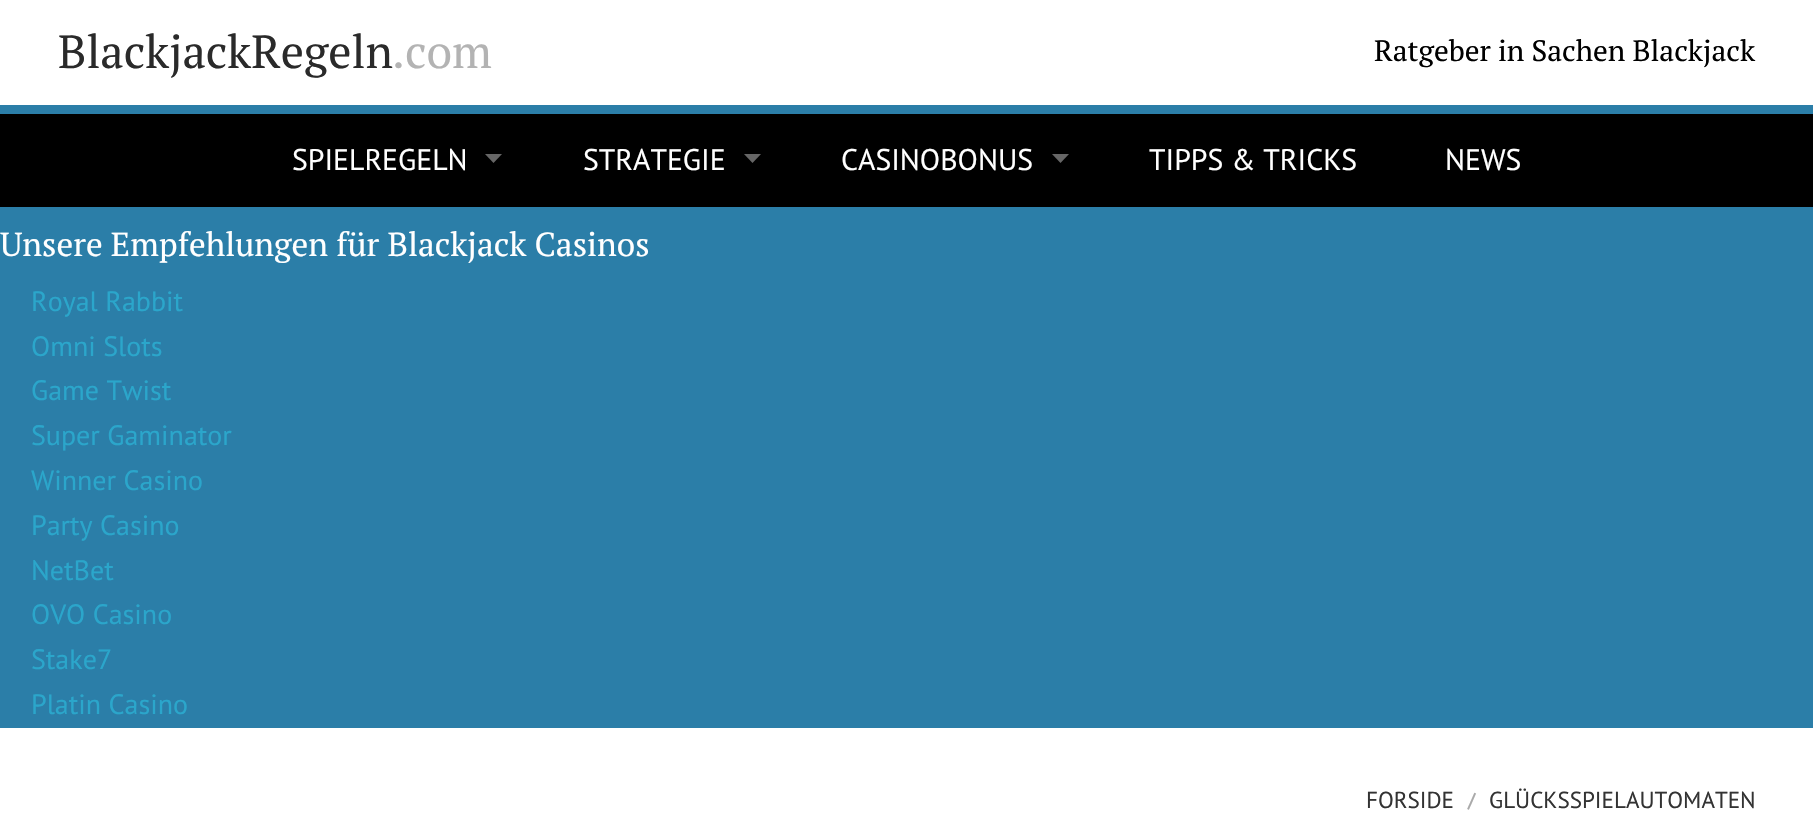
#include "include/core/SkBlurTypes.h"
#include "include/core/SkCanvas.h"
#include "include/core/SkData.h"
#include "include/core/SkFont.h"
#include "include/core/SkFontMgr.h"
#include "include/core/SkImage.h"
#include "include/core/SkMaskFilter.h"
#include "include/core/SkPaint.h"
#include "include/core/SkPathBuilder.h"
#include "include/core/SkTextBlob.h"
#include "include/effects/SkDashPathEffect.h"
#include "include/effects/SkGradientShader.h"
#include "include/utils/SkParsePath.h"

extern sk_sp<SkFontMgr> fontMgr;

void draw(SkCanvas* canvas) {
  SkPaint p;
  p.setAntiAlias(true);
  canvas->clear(SK_ColorWHITE);
  p.setColor(SK_ColorBLACK);
  canvas->drawRect(SkRect::MakeLTRB(0, 114, 1813, 207), p);
  p.setColor(SkColorSetRGB(43, 126, 168));
  canvas->drawRect(SkRect::MakeLTRB(0, 105, 1813, 114), p);
  p.setColor(SkColorSetRGB(102, 102, 102));
  canvas->drawPath(SkPathBuilder().moveTo(485, 154).lineTo(502, 154).lineTo(493.5f, 163).close().detach(), p);
  canvas->drawPath(SkPathBuilder().moveTo(744, 154).lineTo(761, 154).lineTo(752.5f, 163).close().detach(), p);
  canvas->drawPath(SkPathBuilder().moveTo(1052, 154).lineTo(1069, 154).lineTo(1060.5f, 163).close().detach(), p);
  p.setColor(SkColorSetRGB(43, 126, 168));
  canvas->drawRect(SkRect::MakeLTRB(0, 207, 1813, 728), p);
  SkFont font1(fontMgr->matchFamilyStyle("PT Serif", SkFontStyle::Normal()), 46.25f);
  font1.setSubpixel(true);
  p.setColor(SkColorSetRGB(42, 42, 42));
  canvas->drawString("BlackjackRegeln", 58, 68, font1, p);
  p.setColor(SkColorSetRGB(179, 179, 179));
  canvas->drawString(".com", 392, 68, font1, p);
  SkFont font2(fontMgr->matchFamilyStyle("PT Serif", SkFontStyle::Normal()), 29.4f);
  font2.setSubpixel(true);
  p.setColor(SK_ColorBLACK);
  canvas->drawString("Ratgeber in Sachen Blackjack", 1374, 61, font2, p);
  SkFont font3(fontMgr->matchFamilyStyle("PT Sans", SkFontStyle::Normal()), 29.75f);
  font3.setSubpixel(true);
  p.setColor(SK_ColorWHITE);
  canvas->drawString("SPIELREGELN", 292, 170, font3, p);
  canvas->drawString("STRATEGIE", 583, 170, font3, p);
  canvas->drawString("CASINOBONUS", 841, 170, font3, p);
  canvas->drawString("TIPPS & TRICKS", 1149, 170, font3, p);
  canvas->drawString("NEWS", 1445, 170, font3, p);
  SkFont font4(fontMgr->matchFamilyStyle("PT Serif", SkFontStyle::Normal()), 33.25f);
  font4.setSubpixel(true);
  canvas->drawString("Unsere Empfehlungen für Blackjack Casinos", 0, 256, font4, p);
  SkFont font5(fontMgr->matchFamilyStyle("PT Sans", SkFontStyle::Normal()), 28);
  font5.setSubpixel(true);
  p.setColor(SkColorSetRGB(43, 166, 203));
  canvas->drawString("Royal Rabbit", 31, 311, font5, p);
  canvas->drawString("Omni Slots", 31, 356, font5, p);
  canvas->drawString("Game Twist", 31, 400, font5, p);
  canvas->drawString("Super Gaminator", 31, 445, font5, p);
  canvas->drawString("Winner Casino", 31, 490, font5, p);
  canvas->drawString("Party Casino", 31, 535, font5, p);
  canvas->drawString("NetBet", 31, 580, font5, p);
  canvas->drawString("OVO Casino", 31, 624, font5, p);
  canvas->drawString("Stake7", 31, 669, font5, p);
  canvas->drawString("Platin Casino", 31, 714, font5, p);
  SkFont font6(fontMgr->matchFamilyStyle("PT Sans", SkFontStyle::Normal()), 23.1f);
  font6.setSubpixel(true);
  p.setColor(SkColorSetRGB(51, 51, 51));
  canvas->drawString("FORSIDE", 1366, 808, font6, p);
  SkFont font7(fontMgr->matchFamilyStyle("PT Sans", SkFontStyle::Bold()), 19);
  font7.setSubpixel(true);
  p.setColor(SkColorSetRGB(170, 170, 170));
  canvas->drawString("/", 1468, 807, font7, p);
  p.setColor(SkColorSetRGB(51, 51, 51));
  canvas->drawString("GLÜCKSSPIELAUTOMATEN", 1489, 808, font6, p);
}
